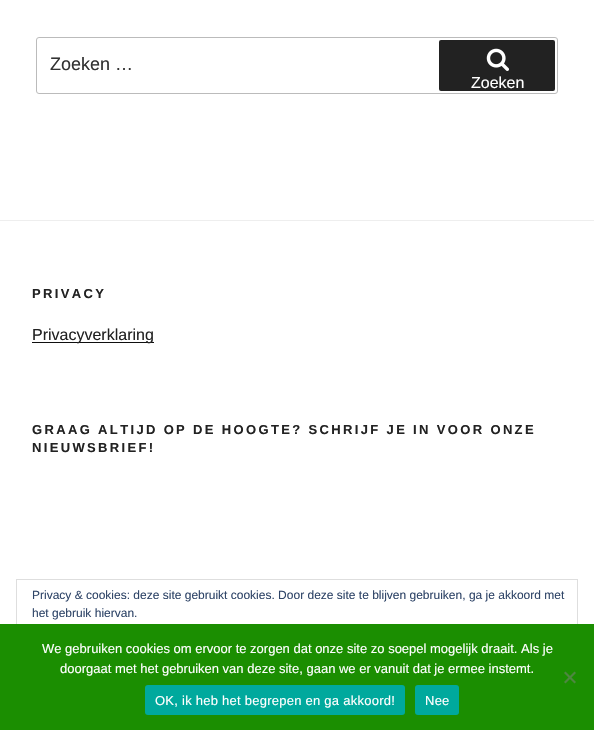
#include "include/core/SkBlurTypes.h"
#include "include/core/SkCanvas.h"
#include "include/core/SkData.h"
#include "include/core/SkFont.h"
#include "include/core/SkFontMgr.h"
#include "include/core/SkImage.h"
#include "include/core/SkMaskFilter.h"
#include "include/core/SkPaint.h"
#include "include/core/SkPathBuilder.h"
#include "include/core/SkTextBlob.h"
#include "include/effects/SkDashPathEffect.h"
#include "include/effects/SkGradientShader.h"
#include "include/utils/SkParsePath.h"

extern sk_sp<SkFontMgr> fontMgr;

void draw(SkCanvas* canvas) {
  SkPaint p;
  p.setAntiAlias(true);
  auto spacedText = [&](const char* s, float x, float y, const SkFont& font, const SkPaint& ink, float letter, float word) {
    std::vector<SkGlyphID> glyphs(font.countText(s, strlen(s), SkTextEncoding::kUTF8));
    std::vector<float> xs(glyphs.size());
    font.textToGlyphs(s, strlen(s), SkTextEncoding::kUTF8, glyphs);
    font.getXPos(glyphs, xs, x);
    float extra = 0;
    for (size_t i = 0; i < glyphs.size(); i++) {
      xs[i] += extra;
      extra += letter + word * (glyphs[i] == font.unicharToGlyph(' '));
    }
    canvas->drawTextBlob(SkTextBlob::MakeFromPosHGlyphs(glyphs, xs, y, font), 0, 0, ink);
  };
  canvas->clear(SK_ColorWHITE);
  p.setStyle(SkPaint::kStroke_Style);
  p.setStrokeWidth(1);
  p.setColor(SkColorSetRGB(187, 187, 187));
  canvas->drawRoundRect(SkRect::MakeLTRB(36.5f, 37.5f, 557.5f, 93.5f), 2.5f, 2.5f, p);
  p.setStyle(SkPaint::kFill_Style);
  p.setColor(SkColorSetRGB(34, 34, 34));
  canvas->drawRoundRect(SkRect::MakeLTRB(439, 40, 555, 91), 2, 2, p);
  canvas->drawImageRect(SkImages::DeferredFromEncodedData(SkData::MakeFromFileName("images/1.png")), SkRect::MakeLTRB(486, 48, 509, 71), SkSamplingOptions());
  p.setColor(SkColorSetRGB(238, 238, 238));
  canvas->drawRect(SkRect::MakeLTRB(0, 220, 594, 221), p);
  p.setColor(SkColorSetRGB(15, 15, 15));
  canvas->drawRect(SkRect::MakeLTRB(32, 342, 154, 343), p);
  p.setStyle(SkPaint::kStroke_Style);
  p.setColor(SkColorSetRGB(222, 222, 222));
  canvas->drawRect(SkRect::MakeLTRB(16.5f, 579.5f, 577.5f, 713.5f), p);
  p.setStyle(SkPaint::kFill_Style);
  p.setColor(SkColorSetRGB(27, 142, 1));
  canvas->drawRect(SkRect::MakeLTRB(0, 624, 594, 730), p);
  p.setColor(SkColorSetRGB(78, 135, 65));
  canvas->drawPath(SkPathBuilder().moveTo(574.5f, 671.5f).lineTo(576, 673).lineTo(565.5f, 683.5f).lineTo(564, 682).close().detach(), p);
  canvas->drawPath(SkPathBuilder().moveTo(564, 673).lineTo(565.5f, 671.5f).lineTo(576, 682).lineTo(574.5f, 683.5f).close().detach(), p);
  p.setColor(SkColorSetRGB(0, 169, 157));
  canvas->drawRoundRect(SkRect::MakeLTRB(145, 685, 405, 715), 3, 3, p);
  canvas->drawRoundRect(SkRect::MakeLTRB(415, 685, 459, 715), 3, 3, p);
  SkFont font1(fontMgr->matchFamilyStyle("Liberation Sans", SkFontStyle::Normal()), 18);
  font1.setSubpixel(true);
  p.setColor(SkColorSetRGB(51, 51, 51));
  canvas->drawString("Zoeken …", 50, 70, font1, p);
  SkFont font2(fontMgr->matchFamilyStyle("Liberation Sans", SkFontStyle::Normal()), 16);
  font2.setSubpixel(true);
  p.setColor(SK_ColorWHITE);
  canvas->drawString("Zoeken", 471, 88, font2, p);
  SkFont font3(fontMgr->matchFamilyStyle("Liberation Sans", SkFontStyle::Bold()), 13);
  font3.setSubpixel(true);
  p.setColor(SkColorSetRGB(34, 34, 34));
  spacedText("PRIVACY", 32, 298, font3, p, 2.35f, 0);
  canvas->drawString("Privacyverklaring", 32, 340, font2, p);
  SkFont font4(fontMgr->matchFamilyStyle("Liberation Sans", SkFontStyle::Normal()), 12);
  font4.setSubpixel(true);
  p.setColor(SkColorSetRGB(46, 68, 103));
  canvas->drawString("Privacy & cookies: deze site gebruikt cookies. Door deze site te blijven gebruiken, ga je akkoord met", 32, 599, font4, p);
  canvas->drawString("het gebruik hiervan.", 32, 617, font4, p);
  p.setColor(SkColorSetRGB(34, 34, 34));
  spacedText("GRAAG ALTIJD OP DE HOOGTE? SCHRIJF JE IN VOOR ONZE", 32, 434, font3, p, 2.35f, 0);
  spacedText("NIEUWSBRIEF!", 32, 452, font3, p, 2.35f, 0);
  SkFont font5(fontMgr->matchFamilyStyle("Liberation Sans", SkFontStyle::Normal()), 13);
  font5.setSubpixel(true);
  p.setColor(SK_ColorWHITE);
  canvas->drawString("We gebruiken cookies om ervoor te zorgen dat onze site zo soepel mogelijk draait. Als je", 42, 653, font5, p);
  canvas->drawString("doorgaat met het gebruiken van deze site, gaan we er vanuit dat je ermee instemt.", 60, 673, font5, p);
  spacedText("OK, ik heb het begrepen en ga akkoord!", 155, 705, font5, p, 0.25f, 0);
  spacedText("Nee", 425, 705, font5, p, 0.25f, 0);
}
